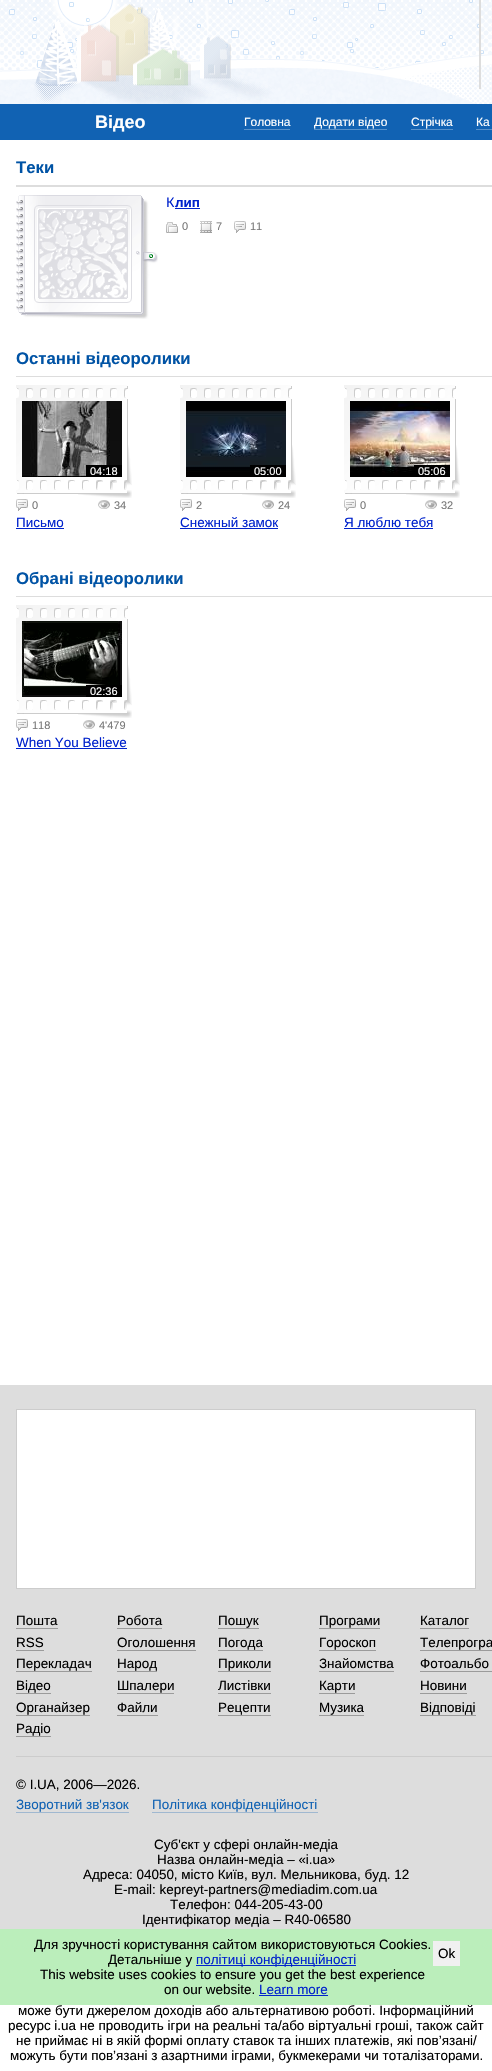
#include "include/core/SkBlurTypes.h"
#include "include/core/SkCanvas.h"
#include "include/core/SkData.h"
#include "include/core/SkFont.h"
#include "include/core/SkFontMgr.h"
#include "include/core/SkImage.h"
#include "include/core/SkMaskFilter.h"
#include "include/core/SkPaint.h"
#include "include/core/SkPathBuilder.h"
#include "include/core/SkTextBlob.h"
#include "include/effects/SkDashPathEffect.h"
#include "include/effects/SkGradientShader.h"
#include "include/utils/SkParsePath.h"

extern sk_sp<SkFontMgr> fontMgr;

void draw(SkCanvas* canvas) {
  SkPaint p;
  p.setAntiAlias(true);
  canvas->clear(SK_ColorWHITE);
  canvas->drawImageRect(SkImages::DeferredFromEncodedData(SkData::MakeFromFileName("images/1.png")), SkRect::MakeLTRB(0, 0, 492, 104), SkSamplingOptions());
  p.setColor(SkColorSetRGB(221, 221, 221));
  canvas->drawRect(SkRect::MakeLTRB(479, 0, 481, 89), p);
  p.setColor(SkColorSetRGB(17, 98, 179));
  canvas->drawRect(SkRect::MakeLTRB(0, 104, 492, 140), p);
  p.setColor(SkColorSetRGB(88, 145, 202));
  canvas->drawRect(SkRect::MakeLTRB(244, 129, 290, 130), p);
  canvas->drawRect(SkRect::MakeLTRB(314, 129, 387, 130), p);
  canvas->drawRect(SkRect::MakeLTRB(411, 129, 453, 130), p);
  canvas->drawRect(SkRect::MakeLTRB(476, 129, 492, 130), p);
  p.setColor(SkColorSetRGB(221, 221, 221));
  canvas->drawRect(SkRect::MakeLTRB(16, 185, 492, 187), p);
  canvas->drawImageRect(SkImages::DeferredFromEncodedData(SkData::MakeFromFileName("images/2.png")), SkRect::MakeLTRB(16, 195, 158, 319), SkSamplingOptions());
  canvas->drawImageRect(SkImages::DeferredFromEncodedData(SkData::MakeFromFileName("images/3.png")), SkRect::MakeLTRB(34, 205, 132, 303), SkSamplingOptions());
  p.setColor(SkColorSetRGB(0, 34, 204));
  canvas->drawRect(SkRect::MakeLTRB(175, 208, 200, 209), p);
  canvas->drawImageRect(SkImages::DeferredFromEncodedData(SkData::MakeFromFileName("images/4.png")), SkRect::MakeLTRB(166, 222, 178, 233), SkSamplingOptions());
  canvas->drawImageRect(SkImages::DeferredFromEncodedData(SkData::MakeFromFileName("images/5.png")), SkRect::MakeLTRB(200, 221, 212, 233), SkSamplingOptions());
  canvas->drawImageRect(SkImages::DeferredFromEncodedData(SkData::MakeFromFileName("images/6.png")), SkRect::MakeLTRB(234, 221, 246, 233), SkSamplingOptions());
  p.setColor(SkColorSetRGB(221, 221, 221));
  canvas->drawRect(SkRect::MakeLTRB(16, 376, 492, 377), p);
  canvas->drawImageRect(SkImages::DeferredFromEncodedData(SkData::MakeFromFileName("images/7.png")), SkRect::MakeLTRB(16, 385, 132, 498), SkSamplingOptions());
  canvas->drawImageRect(SkImages::DeferredFromEncodedData(SkData::MakeFromFileName("images/8.png")), SkRect::MakeLTRB(22, 401, 122, 477), SkSamplingOptions());
  p.setColor(SK_ColorBLACK);
  canvas->drawRect(SkRect::MakeLTRB(86, 465, 122, 477), p);
  canvas->drawImageRect(SkImages::DeferredFromEncodedData(SkData::MakeFromFileName("images/6.png")), SkRect::MakeLTRB(16, 499, 28, 511), SkSamplingOptions());
  canvas->drawImageRect(SkImages::DeferredFromEncodedData(SkData::MakeFromFileName("images/9.png")), SkRect::MakeLTRB(98, 500, 110, 509), SkSamplingOptions());
  p.setColor(SkColorSetRGB(0, 34, 204));
  canvas->drawRect(SkRect::MakeLTRB(16, 528, 64, 529), p);
  canvas->drawImageRect(SkImages::DeferredFromEncodedData(SkData::MakeFromFileName("images/7.png")), SkRect::MakeLTRB(180, 385, 296, 498), SkSamplingOptions());
  canvas->drawImageRect(SkImages::DeferredFromEncodedData(SkData::MakeFromFileName("images/10.png")), SkRect::MakeLTRB(186, 401, 286, 477), SkSamplingOptions());
  p.setColor(SK_ColorBLACK);
  canvas->drawRect(SkRect::MakeLTRB(250, 465, 286, 472), p);
  canvas->drawImageRect(SkImages::DeferredFromEncodedData(SkData::MakeFromFileName("images/6.png")), SkRect::MakeLTRB(180, 499, 192, 511), SkSamplingOptions());
  canvas->drawImageRect(SkImages::DeferredFromEncodedData(SkData::MakeFromFileName("images/9.png")), SkRect::MakeLTRB(262, 500, 274, 509), SkSamplingOptions());
  p.setColor(SkColorSetRGB(0, 34, 204));
  canvas->drawRect(SkRect::MakeLTRB(180, 528, 278, 529), p);
  canvas->drawImageRect(SkImages::DeferredFromEncodedData(SkData::MakeFromFileName("images/7.png")), SkRect::MakeLTRB(344, 385, 460, 498), SkSamplingOptions());
  canvas->drawImageRect(SkImages::DeferredFromEncodedData(SkData::MakeFromFileName("images/11.png")), SkRect::MakeLTRB(350, 401, 450, 477), SkSamplingOptions());
  p.setColor(SK_ColorBLACK);
  canvas->drawRect(SkRect::MakeLTRB(414, 465, 450, 472), p);
  canvas->drawImageRect(SkImages::DeferredFromEncodedData(SkData::MakeFromFileName("images/6.png")), SkRect::MakeLTRB(344, 499, 356, 511), SkSamplingOptions());
  canvas->drawImageRect(SkImages::DeferredFromEncodedData(SkData::MakeFromFileName("images/9.png")), SkRect::MakeLTRB(425, 500, 437, 509), SkSamplingOptions());
  p.setColor(SkColorSetRGB(0, 34, 204));
  canvas->drawRect(SkRect::MakeLTRB(344, 528, 433, 529), p);
  p.setColor(SkColorSetRGB(221, 221, 221));
  canvas->drawRect(SkRect::MakeLTRB(16, 596, 492, 597), p);
  canvas->drawImageRect(SkImages::DeferredFromEncodedData(SkData::MakeFromFileName("images/7.png")), SkRect::MakeLTRB(16, 605, 132, 718), SkSamplingOptions());
  canvas->drawImageRect(SkImages::DeferredFromEncodedData(SkData::MakeFromFileName("images/12.png")), SkRect::MakeLTRB(22, 621, 122, 697), SkSamplingOptions());
  p.setColor(SK_ColorBLACK);
  canvas->drawRect(SkRect::MakeLTRB(86, 685, 122, 697), p);
  canvas->drawImageRect(SkImages::DeferredFromEncodedData(SkData::MakeFromFileName("images/6.png")), SkRect::MakeLTRB(16, 719, 28, 731), SkSamplingOptions());
  canvas->drawImageRect(SkImages::DeferredFromEncodedData(SkData::MakeFromFileName("images/9.png")), SkRect::MakeLTRB(83, 720, 95, 729), SkSamplingOptions());
  p.setColor(SkColorSetRGB(0, 34, 204));
  canvas->drawRect(SkRect::MakeLTRB(16, 748, 127, 749), p);
  p.setColor(SkColorSetRGB(221, 221, 221));
  canvas->drawRect(SkRect::MakeLTRB(0, 1385, 492, 1929), p);
  p.setColor(SK_ColorWHITE);
  canvas->drawRect(SkRect::MakeLTRB(16.5f, 1409.5f, 475.5f, 1588.5f), p);
  p.setStyle(SkPaint::kStroke_Style);
  p.setStrokeWidth(1);
  p.setColor(SkColorSetRGB(204, 204, 204));
  canvas->drawRect(SkRect::MakeLTRB(16.5f, 1409.5f, 475.5f, 1588.5f), p);
  p.setStyle(SkPaint::kFill_Style);
  p.setColor(SkColorSetRGB(155, 155, 155));
  canvas->drawRect(SkRect::MakeLTRB(16, 1628, 58, 1629), p);
  canvas->drawRect(SkRect::MakeLTRB(117, 1628, 162, 1629), p);
  canvas->drawRect(SkRect::MakeLTRB(218, 1628, 259, 1629), p);
  canvas->drawRect(SkRect::MakeLTRB(319, 1628, 380, 1629), p);
  canvas->drawRect(SkRect::MakeLTRB(420, 1628, 469, 1629), p);
  canvas->drawRect(SkRect::MakeLTRB(16, 1650, 44, 1651), p);
  canvas->drawRect(SkRect::MakeLTRB(117, 1650, 196, 1651), p);
  canvas->drawRect(SkRect::MakeLTRB(218, 1650, 263, 1651), p);
  canvas->drawRect(SkRect::MakeLTRB(319, 1650, 376, 1651), p);
  canvas->drawRect(SkRect::MakeLTRB(420, 1650, 492, 1651), p);
  canvas->drawRect(SkRect::MakeLTRB(16, 1671, 92, 1672), p);
  canvas->drawRect(SkRect::MakeLTRB(117, 1671, 157, 1672), p);
  canvas->drawRect(SkRect::MakeLTRB(218, 1671, 271, 1672), p);
  canvas->drawRect(SkRect::MakeLTRB(319, 1671, 394, 1672), p);
  canvas->drawRect(SkRect::MakeLTRB(420, 1671, 492, 1672), p);
  canvas->drawRect(SkRect::MakeLTRB(16, 1693, 51, 1694), p);
  canvas->drawRect(SkRect::MakeLTRB(117, 1693, 174, 1694), p);
  canvas->drawRect(SkRect::MakeLTRB(218, 1693, 271, 1694), p);
  canvas->drawRect(SkRect::MakeLTRB(319, 1693, 355, 1694), p);
  canvas->drawRect(SkRect::MakeLTRB(420, 1693, 467, 1694), p);
  canvas->drawRect(SkRect::MakeLTRB(16, 1715, 90, 1716), p);
  canvas->drawRect(SkRect::MakeLTRB(117, 1715, 158, 1716), p);
  canvas->drawRect(SkRect::MakeLTRB(218, 1715, 271, 1716), p);
  canvas->drawRect(SkRect::MakeLTRB(319, 1715, 364, 1716), p);
  canvas->drawRect(SkRect::MakeLTRB(420, 1715, 476, 1716), p);
  canvas->drawRect(SkRect::MakeLTRB(16, 1736, 51, 1737), p);
  p.setColor(SkColorSetRGB(204, 204, 204));
  canvas->drawRect(SkRect::MakeLTRB(16, 1756, 492, 1757), p);
  p.setColor(SkColorSetRGB(160, 184, 208));
  canvas->drawRect(SkRect::MakeLTRB(16, 1812, 129, 1813), p);
  canvas->drawRect(SkRect::MakeLTRB(152, 1812, 318, 1813), p);
  p.setColor(SkColorSetRGB(187, 238, 187));
  canvas->drawRect(SkRect::MakeLTRB(0, 1929, 492, 2005), p);
  p.setColor(SkColorSetRGB(0, 34, 204));
  canvas->drawRect(SkRect::MakeLTRB(196, 1965, 356, 1966), p);
  p.setColor(SkColorSetRGB(240, 240, 240));
  canvas->drawRect(SkRect::MakeLTRB(433, 1941, 460, 1966), p);
  p.setColor(SkColorSetRGB(0, 34, 204));
  canvas->drawRect(SkRect::MakeLTRB(259, 1995, 328, 1996), p);
  SkFont font1(fontMgr->matchFamilyStyle("Liberation Sans", SkFontStyle::Bold()), 18);
  font1.setSubpixel(true);
  p.setColor(SK_ColorWHITE);
  canvas->drawString("Відео", 95, 128, font1, p);
  SkFont font2(fontMgr->matchFamilyStyle("Liberation Sans", SkFontStyle::Normal()), 12);
  font2.setSubpixel(true);
  canvas->drawString("Головна", 244, 126, font2, p);
  canvas->drawString("Додати відео", 314, 126, font2, p);
  canvas->drawString("Стрічка", 411, 126, font2, p);
  canvas->drawString("Ка", 476, 126, font2, p);
  SkFont font3(fontMgr->matchFamilyStyle("Liberation Sans", SkFontStyle::Bold()), 16.75f);
  font3.setSubpixel(true);
  p.setColor(SkColorSetRGB(0, 83, 165));
  canvas->drawString("Теки", 16, 173, font3, p);
  SkFont font4(fontMgr->matchFamilyStyle("Noto Sans", SkFontStyle::Normal()), 13.45f);
  font4.setSubpixel(true);
  p.setColor(SkColorSetRGB(0, 34, 204));
  canvas->drawString("К", 166, 207, font4, p);
  SkFont font5(fontMgr->matchFamilyStyle("Liberation Sans", SkFontStyle::Bold()), 13.45f);
  font5.setSubpixel(true);
  canvas->drawString("лип", 175, 207, font5, p);
  SkFont font6(fontMgr->matchFamilyStyle("Liberation Sans", SkFontStyle::Normal()), 11);
  font6.setSubpixel(true);
  p.setColor(SkColorSetRGB(119, 119, 119));
  canvas->drawString("0", 182, 230, font6, p);
  canvas->drawString("7", 216, 230, font6, p);
  canvas->drawString("11", 250, 230, font6, p);
  p.setColor(SkColorSetRGB(0, 83, 165));
  canvas->drawString("Останні відеоролики", 16, 364, font3, p);
  p.setColor(SK_ColorWHITE);
  canvas->drawString("04:18", 90, 475, font6, p);
  p.setColor(SkColorSetRGB(119, 119, 119));
  canvas->drawString("0", 32, 509, font6, p);
  canvas->drawString("34", 114, 509, font6, p);
  SkFont font7(fontMgr->matchFamilyStyle("Liberation Sans", SkFontStyle::Normal()), 13.45f);
  font7.setSubpixel(true);
  p.setColor(SkColorSetRGB(0, 34, 204));
  canvas->drawString("Письмо", 16, 527, font7, p);
  p.setColor(SK_ColorWHITE);
  canvas->drawString("05:00", 254, 475, font6, p);
  p.setColor(SkColorSetRGB(119, 119, 119));
  canvas->drawString("2", 196, 509, font6, p);
  canvas->drawString("24", 278, 509, font6, p);
  p.setColor(SkColorSetRGB(0, 34, 204));
  canvas->drawString("Снежный замок", 180, 527, font7, p);
  p.setColor(SK_ColorWHITE);
  canvas->drawString("05:06", 418, 475, font6, p);
  p.setColor(SkColorSetRGB(119, 119, 119));
  canvas->drawString("0", 360, 509, font6, p);
  canvas->drawString("32", 441, 509, font6, p);
  p.setColor(SkColorSetRGB(0, 34, 204));
  canvas->drawString("Я люблю тебя", 344, 527, font7, p);
  p.setColor(SkColorSetRGB(0, 83, 165));
  canvas->drawString("Обрані відеоролики", 16, 584, font3, p);
  p.setColor(SK_ColorWHITE);
  canvas->drawString("02:36", 90, 695, font6, p);
  p.setColor(SkColorSetRGB(119, 119, 119));
  canvas->drawString("118", 32, 729, font6, p);
  canvas->drawString("4'479", 99, 729, font6, p);
  p.setColor(SkColorSetRGB(0, 34, 204));
  canvas->drawString("When You Believe", 16, 747, font7, p);
  p.setColor(SK_ColorBLACK);
  canvas->drawString("Пошта", 16, 1625, font7, p);
  canvas->drawString("Робота", 117, 1625, font7, p);
  canvas->drawString("Пошук", 218, 1625, font7, p);
  canvas->drawString("Програми", 319, 1625, font7, p);
  canvas->drawString("Каталог", 420, 1625, font7, p);
  canvas->drawString("RSS", 16, 1647, font7, p);
  canvas->drawString("Оголошення", 117, 1647, font7, p);
  canvas->drawString("Погода", 218, 1647, font7, p);
  canvas->drawString("Гороскоп", 319, 1647, font7, p);
  canvas->drawString("Телепрогра", 420, 1647, font7, p);
  canvas->drawString("Перекладач", 16, 1668, font7, p);
  canvas->drawString("Народ", 117, 1668, font7, p);
  canvas->drawString("Приколи", 218, 1668, font7, p);
  canvas->drawString("Знайомства", 319, 1668, font7, p);
  canvas->drawString("Фотоальбо", 420, 1668, font7, p);
  canvas->drawString("Відео", 16, 1690, font7, p);
  canvas->drawString("Шпалери", 117, 1690, font7, p);
  canvas->drawString("Листівки", 218, 1690, font7, p);
  canvas->drawString("Карти", 319, 1690, font7, p);
  canvas->drawString("Новини", 420, 1690, font7, p);
  canvas->drawString("Органайзер", 16, 1712, font7, p);
  canvas->drawString("Файли", 117, 1712, font7, p);
  canvas->drawString("Рецепти", 218, 1712, font7, p);
  canvas->drawString("Музика", 319, 1712, font7, p);
  canvas->drawString("Відповіді", 420, 1712, font7, p);
  canvas->drawString("Радіо", 16, 1733, font7, p);
  canvas->drawString("© I.UA, 2006—2026.", 16, 1789, font7, p);
  p.setColor(SkColorSetRGB(17, 98, 179));
  canvas->drawString("Зворотний зв'язок", 16, 1809, font7, p);
  canvas->drawString("Політика конфіденційності", 152, 1809, font7, p);
  p.setColor(SK_ColorBLACK);
  canvas->drawString("Суб'єкт у сфері онлайн-медіа", 154, 1849, font7, p);
  canvas->drawString("Назва онлайн-медіа – «i.ua»", 157, 1864, font7, p);
  canvas->drawString("Адреса: 04050, місто Київ, вул. Мельникова, буд. 12", 83, 1879, font7, p);
  canvas->drawString("E-mail: kepreyt-partners@mediadim.com.ua", 114, 1894, font7, p);
  canvas->drawString("Телефон: 044-205-43-00", 170, 1909, font7, p);
  canvas->drawString("Ідентифікатор медіа – R40-06580", 142, 1924, font7, p);
  canvas->drawString("Для зручності користування сайтом використовуються Cookies.", 34, 1949, font7, p);
  canvas->drawString("Детальніше у", 108, 1964, font7, p);
  p.setColor(SkColorSetRGB(0, 34, 204));
  canvas->drawString("політиці конфіденційності", 196, 1964, font7, p);
  p.setColor(SK_ColorBLACK);
  canvas->drawString("Ok", 438, 1958, font7, p);
  canvas->drawString("This website uses cookies to ensure you get the best experience", 40, 1979, font7, p);
  canvas->drawString("on our website.", 164, 1994, font7, p);
  p.setColor(SkColorSetRGB(0, 34, 204));
  canvas->drawString("Learn more", 259, 1994, font7, p);
  p.setColor(SK_ColorBLACK);
  canvas->drawString("може бути джерелом доходів або альтернативою роботі. Інформаційний", 18, 2015, font7, p);
  canvas->drawString("ресурс i.ua не проводить ігри на реальні та/або віртуальні гроші, також сайт", 8, 2030, font7, p);
  canvas->drawString("не приймає ні в якій формі оплату ставок та інших платежів, які пов’язані/", 16, 2045, font7, p);
  canvas->drawString("можуть бути пов’язані з азартними іграми, букмекерами чи тоталізаторами.", 10, 2060, font7, p);
}
